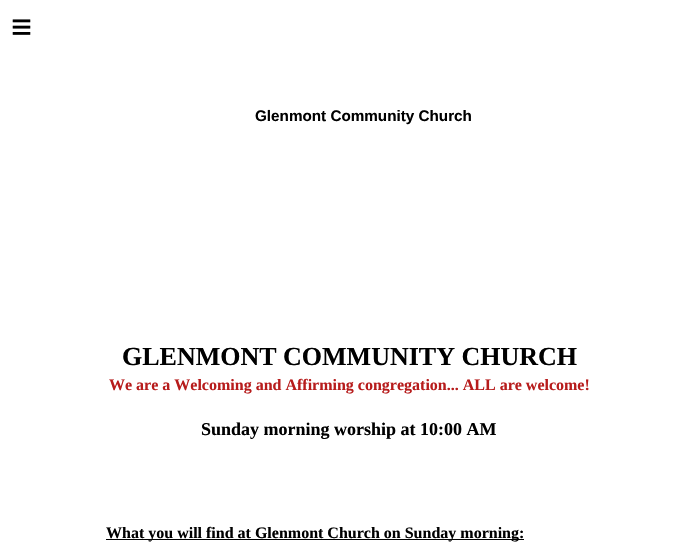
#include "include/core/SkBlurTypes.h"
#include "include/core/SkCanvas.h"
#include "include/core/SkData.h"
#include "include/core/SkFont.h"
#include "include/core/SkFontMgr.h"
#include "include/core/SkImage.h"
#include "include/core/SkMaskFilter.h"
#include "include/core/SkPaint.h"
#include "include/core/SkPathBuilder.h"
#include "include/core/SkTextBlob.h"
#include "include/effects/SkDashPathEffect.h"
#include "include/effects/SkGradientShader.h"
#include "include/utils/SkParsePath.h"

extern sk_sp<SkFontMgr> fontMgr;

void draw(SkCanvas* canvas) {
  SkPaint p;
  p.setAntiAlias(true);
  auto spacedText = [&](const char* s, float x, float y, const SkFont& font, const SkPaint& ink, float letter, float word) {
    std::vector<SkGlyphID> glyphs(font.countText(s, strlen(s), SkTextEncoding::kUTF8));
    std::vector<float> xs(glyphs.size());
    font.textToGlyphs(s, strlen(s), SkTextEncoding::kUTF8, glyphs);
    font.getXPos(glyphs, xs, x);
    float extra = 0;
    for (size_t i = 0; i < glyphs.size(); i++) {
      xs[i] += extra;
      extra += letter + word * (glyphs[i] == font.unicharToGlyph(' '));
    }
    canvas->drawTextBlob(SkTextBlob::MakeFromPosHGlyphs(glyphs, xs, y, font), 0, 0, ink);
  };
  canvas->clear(SK_ColorWHITE);
  p.setColor(SK_ColorBLACK);
  canvas->drawRect(SkRect::MakeLTRB(106, 539, 524, 540), p);
  SkFont font1(fontMgr->matchFamilyStyle("Liberation Sans", SkFontStyle::Normal()), 36);
  font1.setSubpixel(true);
  spacedText("≡", 11, 39, font1, p, 10, 0);
  SkFont font2(fontMgr->matchFamilyStyle("Liberation Sans", SkFontStyle::Bold()), 15.25f);
  font2.setSubpixel(true);
  canvas->drawString("Glenmont Community Church", 255, 121, font2, p);
  SkFont font3(fontMgr->matchFamilyStyle("Liberation Serif", SkFontStyle::Bold()), 26);
  font3.setSubpixel(true);
  canvas->drawString("GLENMONT COMMUNITY CHURCH", 122, 365, font3, p);
  SkFont font4(fontMgr->matchFamilyStyle("Liberation Serif", SkFontStyle::Bold()), 16);
  font4.setSubpixel(true);
  p.setColor(SkColorSetRGB(183, 28, 28));
  canvas->drawString("We are a Welcoming and Affirming congregation... ALL are welcome!", 109, 390, font4, p);
  SkFont font5(fontMgr->matchFamilyStyle("Liberation Serif", SkFontStyle::Bold()), 18);
  font5.setSubpixel(true);
  p.setColor(SK_ColorBLACK);
  canvas->drawString("Sunday morning worship at 10:00 AM", 201, 435, font5, p);
  canvas->drawString("What you will find at Glenmont Church on Sunday morning:", 106, 538, font4, p);
}
